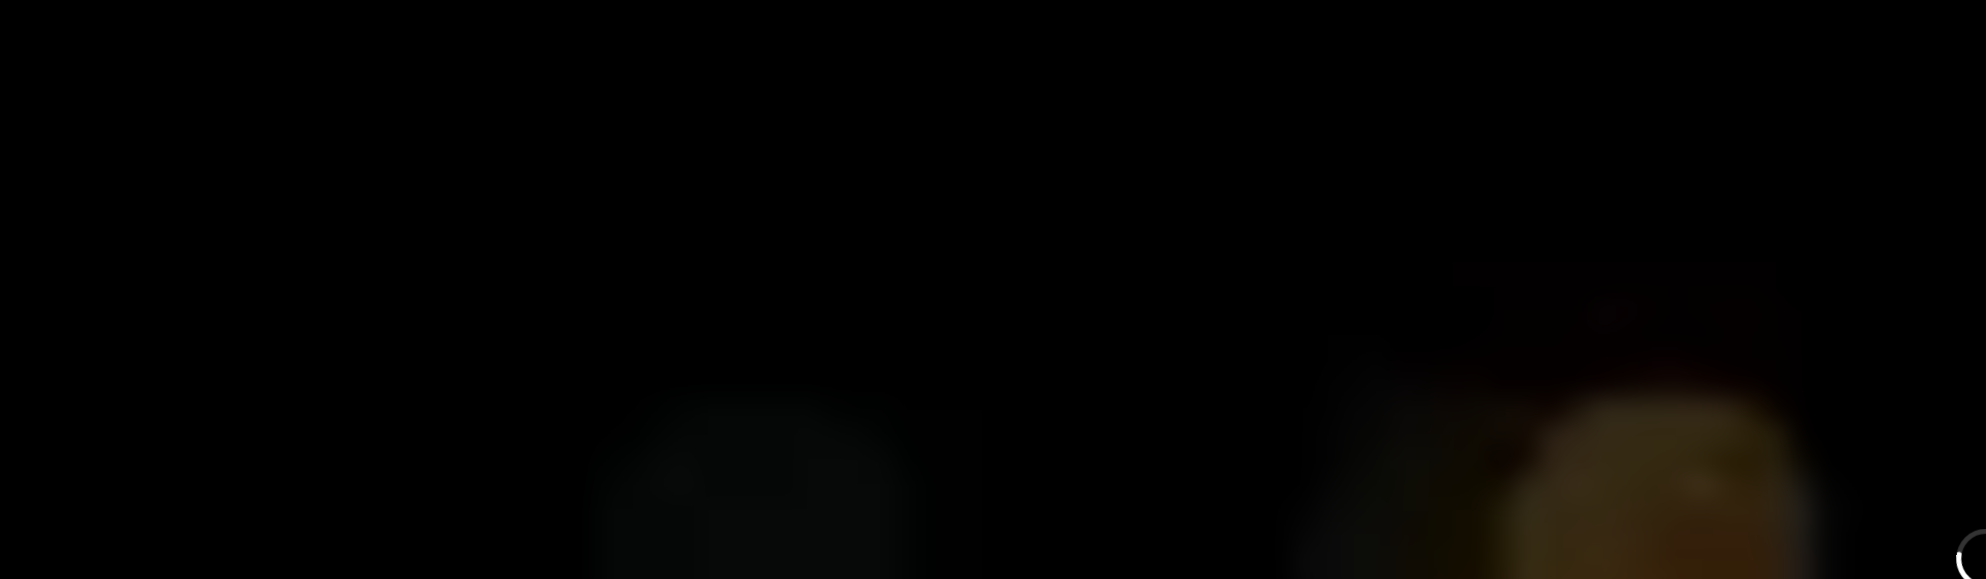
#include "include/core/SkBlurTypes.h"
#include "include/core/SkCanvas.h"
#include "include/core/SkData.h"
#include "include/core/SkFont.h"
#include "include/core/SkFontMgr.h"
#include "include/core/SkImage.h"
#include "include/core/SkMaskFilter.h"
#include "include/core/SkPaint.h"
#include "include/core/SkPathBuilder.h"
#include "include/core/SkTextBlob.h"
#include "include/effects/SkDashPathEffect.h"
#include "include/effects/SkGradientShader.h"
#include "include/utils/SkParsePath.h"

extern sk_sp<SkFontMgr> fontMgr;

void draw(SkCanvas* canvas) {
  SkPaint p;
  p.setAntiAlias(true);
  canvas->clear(SK_ColorWHITE);
  canvas->drawImageRect(SkImages::DeferredFromEncodedData(SkData::MakeFromFileName("images/1.png")), SkRect::MakeLTRB(0, 0, 1986, 579), SkSamplingOptions());
}
